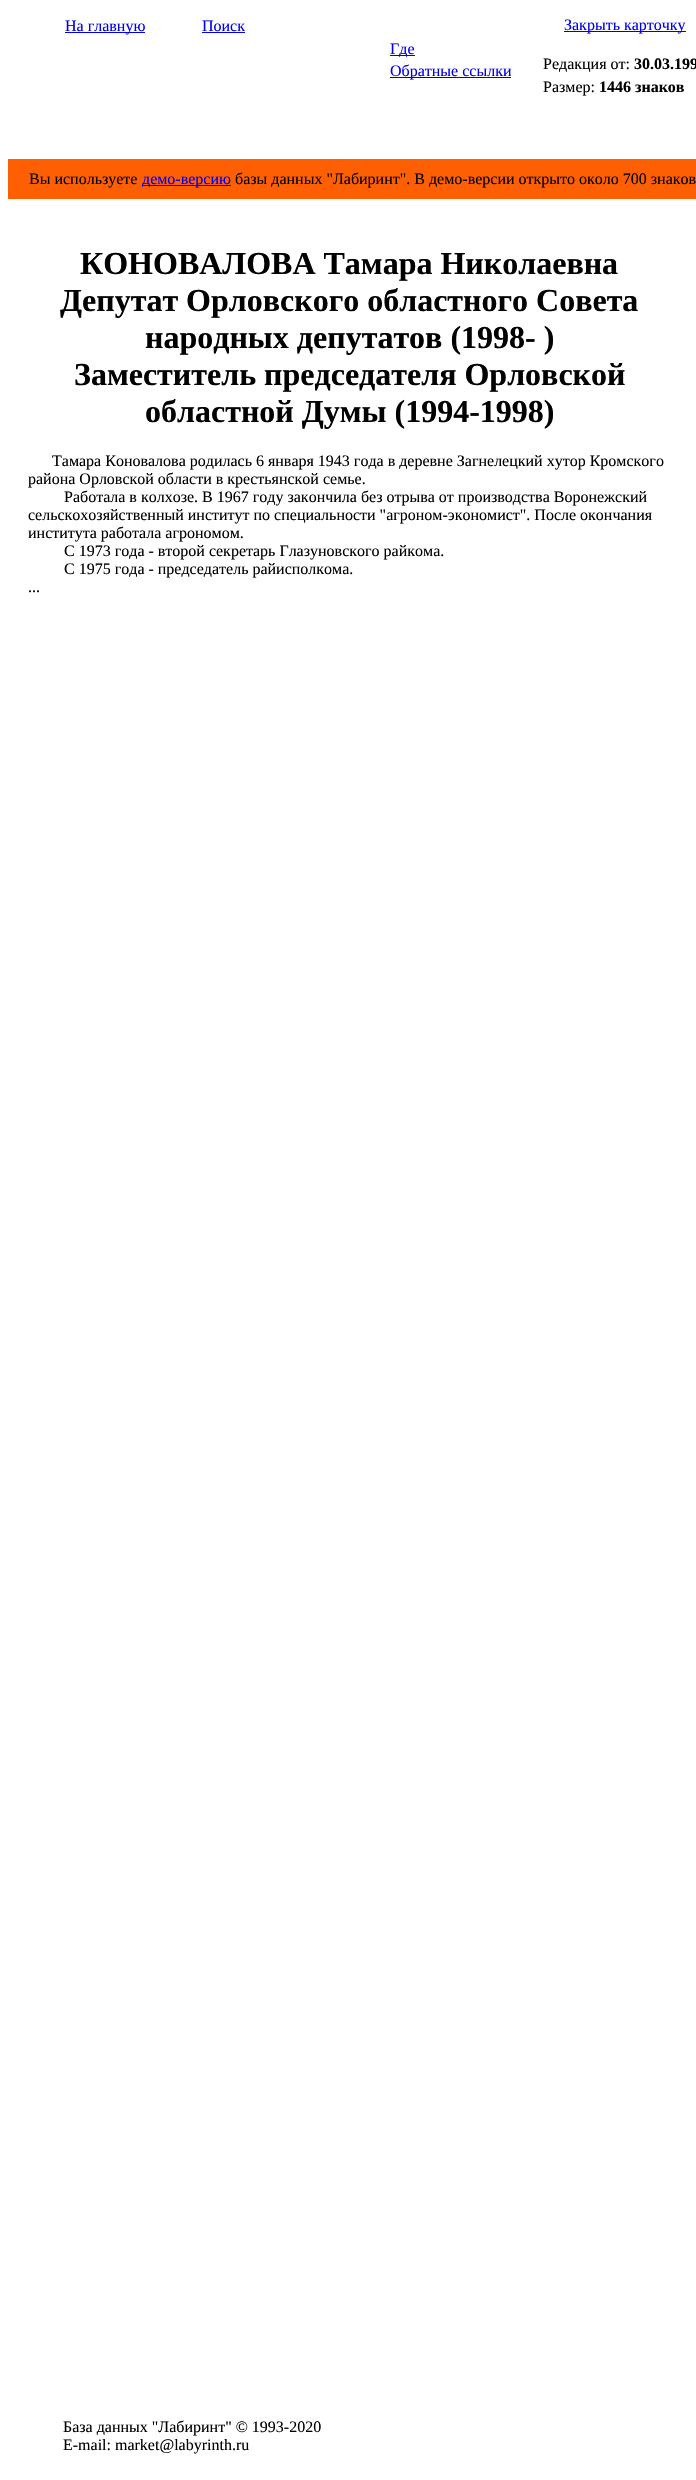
#include "include/core/SkBlurTypes.h"
#include "include/core/SkCanvas.h"
#include "include/core/SkData.h"
#include "include/core/SkFont.h"
#include "include/core/SkFontMgr.h"
#include "include/core/SkImage.h"
#include "include/core/SkMaskFilter.h"
#include "include/core/SkPaint.h"
#include "include/core/SkPathBuilder.h"
#include "include/core/SkTextBlob.h"
#include "include/effects/SkDashPathEffect.h"
#include "include/effects/SkGradientShader.h"
#include "include/utils/SkParsePath.h"

extern sk_sp<SkFontMgr> fontMgr;

void draw(SkCanvas* canvas) {
  SkPaint p;
  p.setAntiAlias(true);
  canvas->clear(SK_ColorWHITE);
  p.setColor(SkColorSetRGB(0, 0, 238));
  canvas->drawRect(SkRect::MakeLTRB(65, 32, 145, 33), p);
  canvas->drawRect(SkRect::MakeLTRB(202, 32, 245, 33), p);
  canvas->drawRect(SkRect::MakeLTRB(564, 31, 686, 32), p);
  canvas->drawRect(SkRect::MakeLTRB(390, 55, 415, 56), p);
  canvas->drawRect(SkRect::MakeLTRB(390, 77, 511, 78), p);
  p.setColor(SkColorSetRGB(255, 95, 3));
  canvas->drawRect(SkRect::MakeLTRB(8, 159, 696, 199), p);
  p.setColor(SkColorSetRGB(0, 0, 238));
  canvas->drawRect(SkRect::MakeLTRB(142, 185, 231, 186), p);
  SkFont font1(fontMgr->matchFamilyStyle("Liberation Serif", SkFontStyle::Normal()), 16);
  font1.setSubpixel(true);
  canvas->drawString("На главную", 65, 31, font1, p);
  canvas->drawString("Поиск", 202, 31, font1, p);
  canvas->drawString("Закрыть карточку", 564, 30, font1, p);
  p.setColor(SK_ColorBLACK);
  canvas->drawString("Редакция от:", 543, 69, font1, p);
  SkFont font2(fontMgr->matchFamilyStyle("Liberation Serif", SkFontStyle::Bold()), 16);
  font2.setSubpixel(true);
  canvas->drawString("30.03.199", 634, 69, font2, p);
  canvas->drawString("Размер:", 543, 92, font1, p);
  canvas->drawString("1446 знаков", 599, 92, font2, p);
  p.setColor(SkColorSetRGB(0, 0, 238));
  canvas->drawString("Где", 390, 54, font1, p);
  canvas->drawString("Обратные ссылки", 390, 76, font1, p);
  p.setColor(SK_ColorBLACK);
  canvas->drawString("Вы используете", 29, 184, font1, p);
  p.setColor(SkColorSetRGB(0, 0, 238));
  canvas->drawString("демо-версию", 142, 184, font1, p);
  p.setColor(SK_ColorBLACK);
  canvas->drawString("базы данных \"Лабиринт\". В демо-версии открыто около 700 знаков", 235, 184, font1, p);
  SkFont font3(fontMgr->matchFamilyStyle("Liberation Serif", SkFontStyle::Bold()), 32);
  font3.setSubpixel(true);
  canvas->drawString("КОНОВАЛОВА Тамара Николаевна", 80, 274, font3, p);
  canvas->drawString("Депутат Орловского областного Совета", 60, 311, font3, p);
  canvas->drawString("народных депутатов (1998- )", 145, 348, font3, p);
  canvas->drawString("Заместитель председателя Орловской", 74, 385, font3, p);
  canvas->drawString("областной Думы (1994-1998)", 145, 422, font3, p);
  canvas->drawString("Тамара Коновалова родилась 6 января 1943 года в деревне Загнелецкий хутор Кромского", 52, 466, font1, p);
  canvas->drawString("района Орловской области в крестьянской семье.", 28, 484, font1, p);
  canvas->drawString("Работала в колхозе. В 1967 году закончила без отрыва от производства Воронежский", 64, 502, font1, p);
  canvas->drawString("сельскохозяйственный институт по специальности \"агроном-экономист\". После окончания", 28, 520, font1, p);
  canvas->drawString("института работала агрономом.", 28, 538, font1, p);
  canvas->drawString("С 1973 года - второй секретарь Глазуновского райкома.", 64, 556, font1, p);
  canvas->drawString("С 1975 года - председатель райисполкома.", 64, 574, font1, p);
  canvas->drawString("...", 28, 592, font1, p);
  canvas->drawString("База данных \"Лабиринт\" © 1993-2020", 63, 2432, font1, p);
  canvas->drawString("E-mail: market@labyrinth.ru", 63, 2450, font1, p);
}
